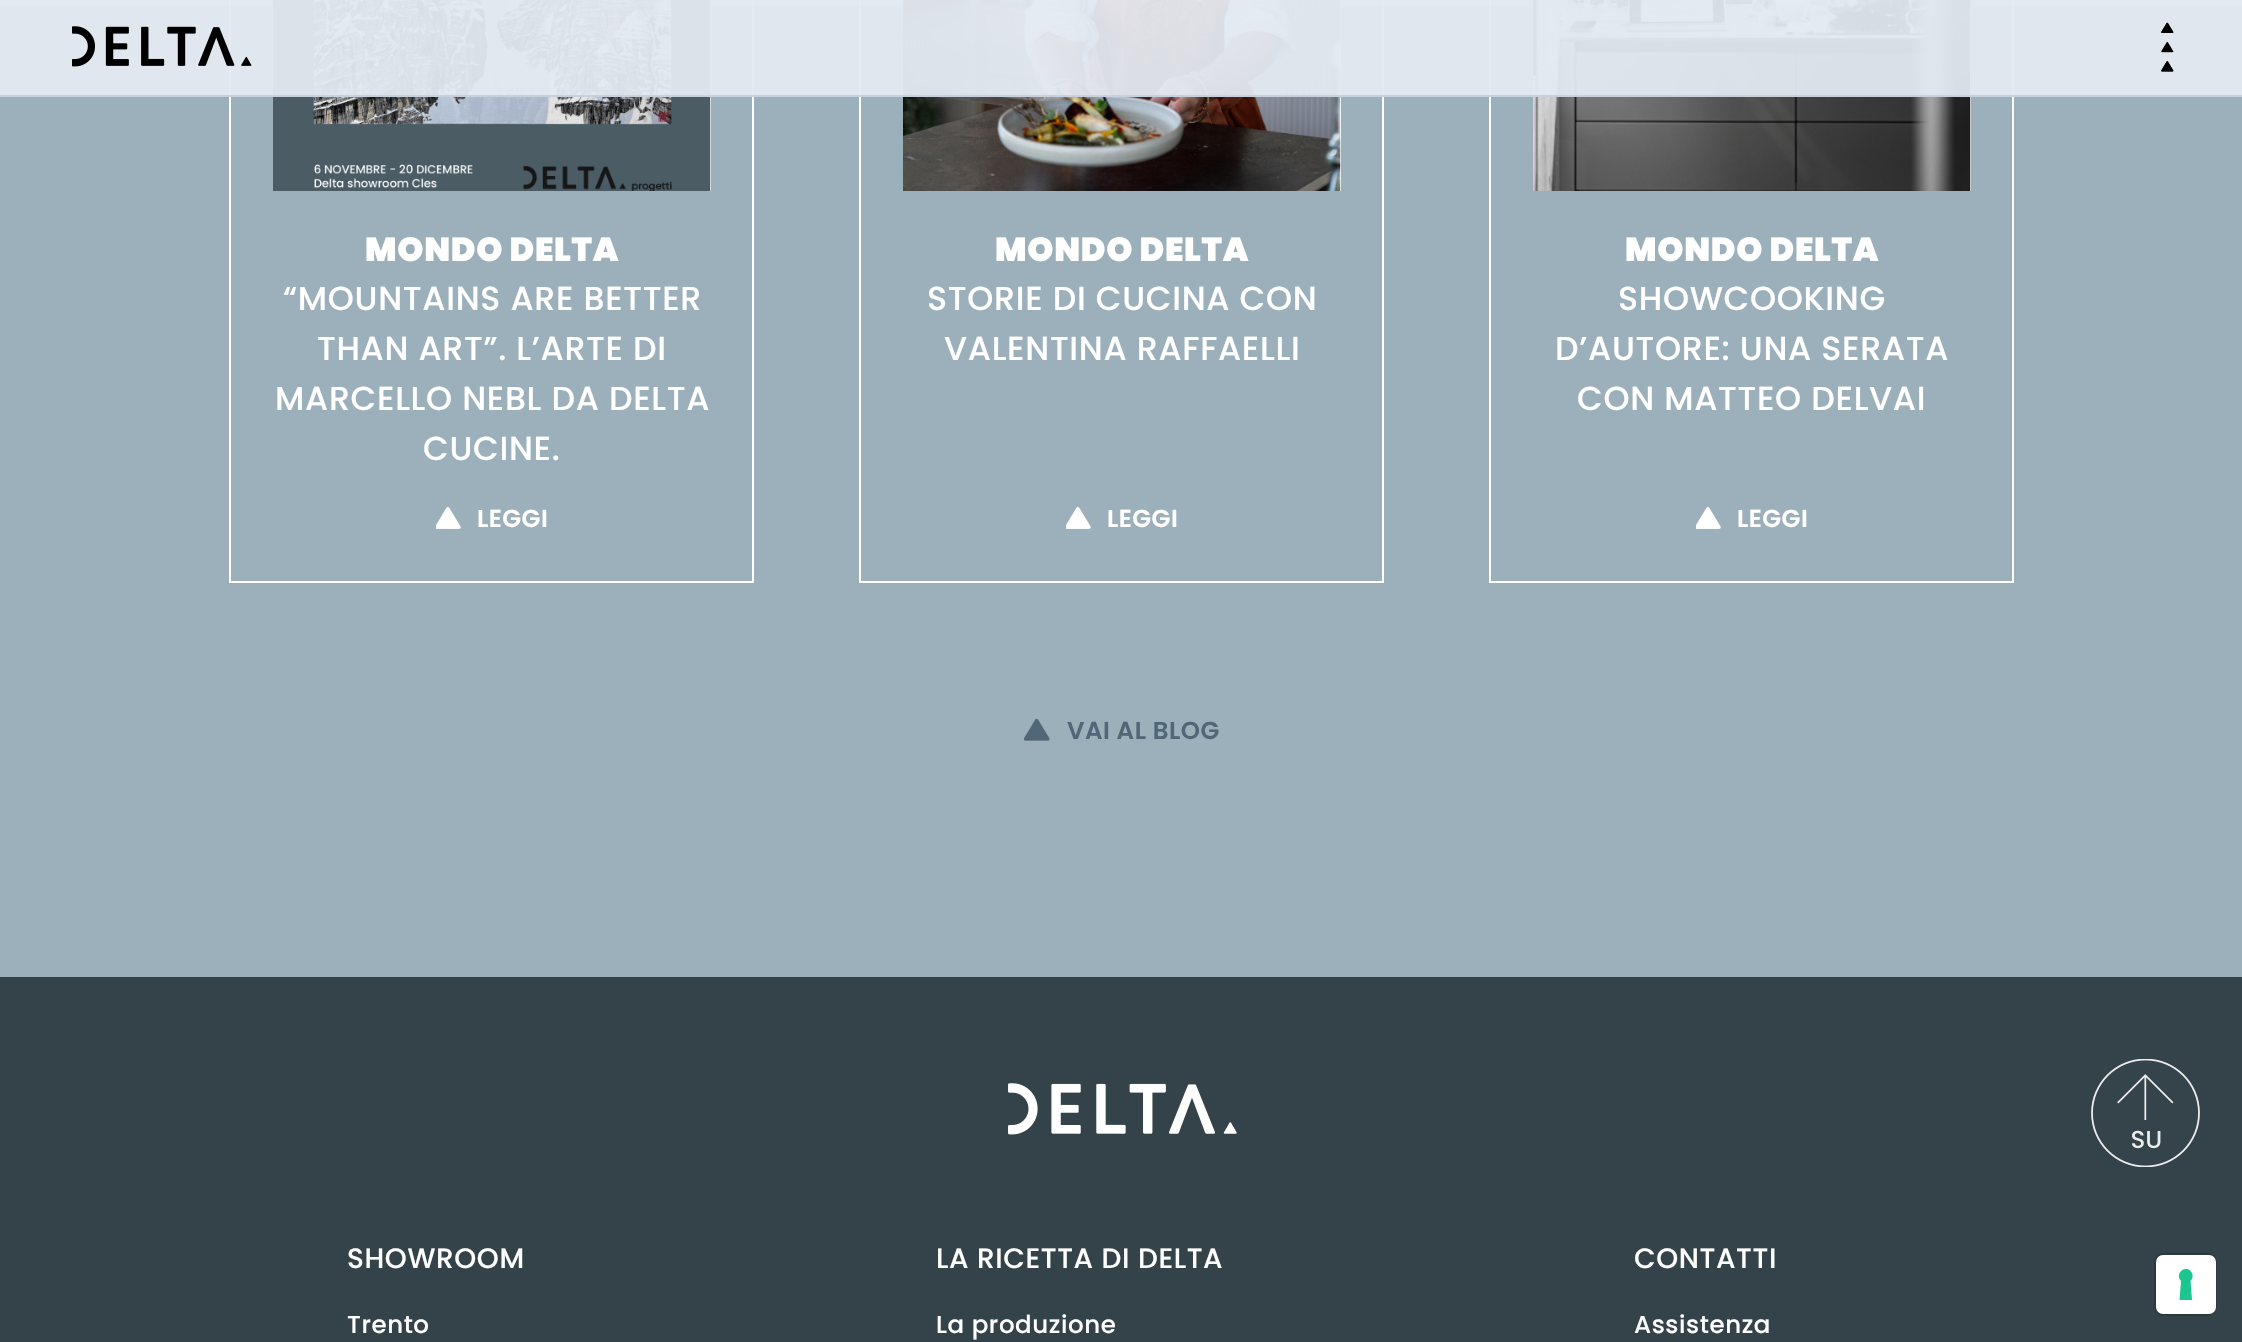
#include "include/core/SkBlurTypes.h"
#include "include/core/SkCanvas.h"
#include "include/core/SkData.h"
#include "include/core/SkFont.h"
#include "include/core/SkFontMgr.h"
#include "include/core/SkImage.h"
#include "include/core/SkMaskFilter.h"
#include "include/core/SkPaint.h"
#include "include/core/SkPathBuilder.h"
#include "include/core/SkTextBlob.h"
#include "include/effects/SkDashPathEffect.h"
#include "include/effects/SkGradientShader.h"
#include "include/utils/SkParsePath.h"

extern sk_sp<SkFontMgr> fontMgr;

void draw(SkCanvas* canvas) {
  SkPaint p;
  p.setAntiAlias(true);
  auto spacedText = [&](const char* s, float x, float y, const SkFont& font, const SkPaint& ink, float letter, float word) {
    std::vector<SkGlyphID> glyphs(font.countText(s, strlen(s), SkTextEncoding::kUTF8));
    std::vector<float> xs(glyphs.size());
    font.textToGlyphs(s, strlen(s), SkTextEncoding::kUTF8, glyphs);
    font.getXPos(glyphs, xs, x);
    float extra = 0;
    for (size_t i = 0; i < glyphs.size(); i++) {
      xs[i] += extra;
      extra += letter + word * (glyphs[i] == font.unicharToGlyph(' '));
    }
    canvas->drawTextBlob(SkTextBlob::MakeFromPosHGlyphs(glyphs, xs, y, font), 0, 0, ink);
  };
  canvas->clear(SkColorSetRGB(210, 218, 221));
  p.setColor(SkColorSetRGB(155, 176, 187));
  canvas->drawRect(SkRect::MakeLTRB(0, 7, 2242, 977), p);
  p.setStyle(SkPaint::kStroke_Style);
  p.setStrokeWidth(2);
  p.setColor(SK_ColorWHITE);
  canvas->drawRect(SkRect::MakeLTRB(230, -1, 753, 582), p);
  p.setStyle(SkPaint::kFill_Style);
  canvas->drawRect(SkRect::MakeLTRB(710, 0, 711, 191), p);
  canvas->drawImageRect(SkImages::DeferredFromEncodedData(SkData::MakeFromFileName("images/7.png")), SkRect::MakeLTRB(273, 0, 711, 191), SkSamplingOptions());
  p.setStyle(SkPaint::kStroke_Style);
  canvas->drawRect(SkRect::MakeLTRB(860, -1, 1383, 582), p);
  p.setStyle(SkPaint::kFill_Style);
  canvas->drawRect(SkRect::MakeLTRB(1340, 0, 1341, 191), p);
  canvas->drawImageRect(SkImages::DeferredFromEncodedData(SkData::MakeFromFileName("images/9.png")), SkRect::MakeLTRB(903, 0, 1341, 191), SkSamplingOptions());
  p.setStyle(SkPaint::kStroke_Style);
  canvas->drawRect(SkRect::MakeLTRB(1490, -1, 2013, 582), p);
  p.setStyle(SkPaint::kFill_Style);
  canvas->drawRect(SkRect::MakeLTRB(1970, 0, 1971, 191), p);
  canvas->drawImageRect(SkImages::DeferredFromEncodedData(SkData::MakeFromFileName("images/10.png")), SkRect::MakeLTRB(1533, 0, 1971, 191), SkSamplingOptions());
  p.setColor(SkColorSetARGB(240, 227, 234, 241));
  canvas->drawRect(SkRect::MakeLTRB(0, 0, 2242, 95), p);
  p.setColor(SkColorSetRGB(198, 209, 221));
  canvas->drawRect(SkRect::MakeLTRB(0, 95, 2242, 97), p);
  canvas->drawImageRect(SkImages::DeferredFromEncodedData(SkData::MakeFromFileName("images/1.png")), SkRect::MakeLTRB(72, 26, 252, 67), SkSamplingOptions());
  canvas->drawImageRect(SkImages::DeferredFromEncodedData(SkData::MakeFromFileName("images/2.png")), SkRect::MakeLTRB(2161, 22, 2174, 33), SkSamplingOptions());
  canvas->drawImageRect(SkImages::DeferredFromEncodedData(SkData::MakeFromFileName("images/3.png")), SkRect::MakeLTRB(2161, 22, 2174, 33), SkSamplingOptions());
  canvas->drawImageRect(SkImages::DeferredFromEncodedData(SkData::MakeFromFileName("images/4.png")), SkRect::MakeLTRB(2161, 42, 2174, 53), SkSamplingOptions());
  canvas->drawImageRect(SkImages::DeferredFromEncodedData(SkData::MakeFromFileName("images/5.png")), SkRect::MakeLTRB(2161, 61, 2174, 72), SkSamplingOptions());
  canvas->drawImageRect(SkImages::DeferredFromEncodedData(SkData::MakeFromFileName("images/6.png")), SkRect::MakeLTRB(2161, 61, 2174, 72), SkSamplingOptions());
  canvas->drawImageRect(SkImages::DeferredFromEncodedData(SkData::MakeFromFileName("images/8.png")), SkRect::MakeLTRB(436, 507, 461, 529), SkSamplingOptions());
  canvas->drawImageRect(SkImages::DeferredFromEncodedData(SkData::MakeFromFileName("images/8.png")), SkRect::MakeLTRB(1066, 507, 1091, 529), SkSamplingOptions());
  canvas->drawImageRect(SkImages::DeferredFromEncodedData(SkData::MakeFromFileName("images/8.png")), SkRect::MakeLTRB(1696, 507, 1721, 529), SkSamplingOptions());
  canvas->drawImageRect(SkImages::DeferredFromEncodedData(SkData::MakeFromFileName("images/11.png")), SkRect::MakeLTRB(1024, 718, 1050, 741), SkSamplingOptions());
  p.setColor(SkColorSetRGB(52, 66, 73));
  canvas->drawRect(SkRect::MakeLTRB(0, 977, 2242, 1342), p);
  canvas->drawImageRect(SkImages::DeferredFromEncodedData(SkData::MakeFromFileName("images/12.png")), SkRect::MakeLTRB(2091, 1059, 2200, 1167), SkSamplingOptions());
  canvas->drawImageRect(SkImages::DeferredFromEncodedData(SkData::MakeFromFileName("images/13.png")), SkRect::MakeLTRB(1008, 1083, 1237, 1135), SkSamplingOptions());
  p.setStyle(SkPaint::kStroke_Style);
  p.setColor(SkColorSetRGB(44, 56, 62));
  canvas->drawRoundRect(SkRect::MakeLTRB(2155, 1254, 2216, 1315), 8, 8, p);
  p.setStyle(SkPaint::kFill_Style);
  p.setColor(SK_ColorWHITE);
  canvas->drawRoundRect(SkRect::MakeLTRB(2156, 1255, 2216, 1314), 7, 7, p);
  p.setColor(SkColorSetRGB(28, 198, 145));
  canvas->drawPath(SkPathBuilder(SkPathFillType::kEvenOdd).moveTo(2186, 1269).cubicTo(2192, 1269, 2195, 1277, 2190.5f, 1281).lineTo(2192, 1300).lineTo(2179.5f, 1300).lineTo(2181, 1281).cubicTo(2176.5f, 1277, 2179.5f, 1269, 2186, 1269).close().detach(), p);
  SkFont font1(fontMgr->matchFamilyStyle("Poppins", SkFontStyle(900, SkFontStyle::kNormal_Width, SkFontStyle::kUpright_Slant)), 33.25f);
  font1.setSubpixel(true);
  p.setColor(SK_ColorWHITE);
  spacedText("MONDO DELTA", 365, 261, font1, p, 0.7f, 0);
  SkFont font2(fontMgr->matchFamilyStyle("Poppins", SkFontStyle(500, SkFontStyle::kNormal_Width, SkFontStyle::kUpright_Slant)), 33.25f);
  font2.setSubpixel(true);
  spacedText("“MOUNTAINS ARE BETTER", 283, 310, font2, p, 0.7f, 0);
  spacedText("THAN ART”. L’ARTE DI", 317, 360, font2, p, 0.7f, 0);
  spacedText("MARCELLO NEBL DA DELTA", 275, 410, font2, p, 0.7f, 0);
  spacedText("CUCINE.", 423, 460, font2, p, 0.7f, 0);
  SkFont font3(fontMgr->matchFamilyStyle("Poppins", SkFontStyle(600, SkFontStyle::kNormal_Width, SkFontStyle::kUpright_Slant)), 24.5f);
  font3.setSubpixel(true);
  spacedText("LEGGI", 477, 527, font3, p, 0.5f, 0);
  spacedText("MONDO DELTA", 995, 261, font1, p, 0.7f, 0);
  spacedText("STORIE DI CUCINA CON", 927, 310, font2, p, 0.7f, 0);
  spacedText("VALENTINA RAFFAELLI", 944, 360, font2, p, 0.7f, 0);
  spacedText("LEGGI", 1107, 527, font3, p, 0.5f, 0);
  spacedText("MONDO DELTA", 1625, 261, font1, p, 0.7f, 0);
  spacedText("SHOWCOOKING", 1618, 310, font2, p, 0.7f, 0);
  spacedText("D’AUTORE: UNA SERATA", 1555, 360, font2, p, 0.7f, 0);
  spacedText("CON MATTEO DELVAI", 1577, 410, font2, p, 0.7f, 0);
  spacedText("LEGGI", 1737, 527, font3, p, 0.5f, 0);
  p.setColor(SkColorSetRGB(81, 103, 119));
  spacedText("VAI AL BLOG", 1067, 739, font3, p, 0.5f, 0);
  SkFont font4(fontMgr->matchFamilyStyle("Poppins", SkFontStyle(500, SkFontStyle::kNormal_Width, SkFontStyle::kUpright_Slant)), 28);
  font4.setSubpixel(true);
  p.setColor(SK_ColorWHITE);
  spacedText("SHOWROOM", 347, 1268, font4, p, 0.6f, 0);
  SkFont font5(fontMgr->matchFamilyStyle("Poppins", SkFontStyle(500, SkFontStyle::kNormal_Width, SkFontStyle::kUpright_Slant)), 24.5f);
  font5.setSubpixel(true);
  spacedText("Trento", 347, 1333, font5, p, 0.6f, 0);
  spacedText("LA RICETTA DI DELTA", 936, 1268, font4, p, 0.6f, 0);
  spacedText("La produzione", 936, 1333, font5, p, 0.6f, 0);
  spacedText("CONTATTI", 1634, 1268, font4, p, 0.6f, 0);
  spacedText("Assistenza", 1634, 1333, font5, p, 0.6f, 0);
}
